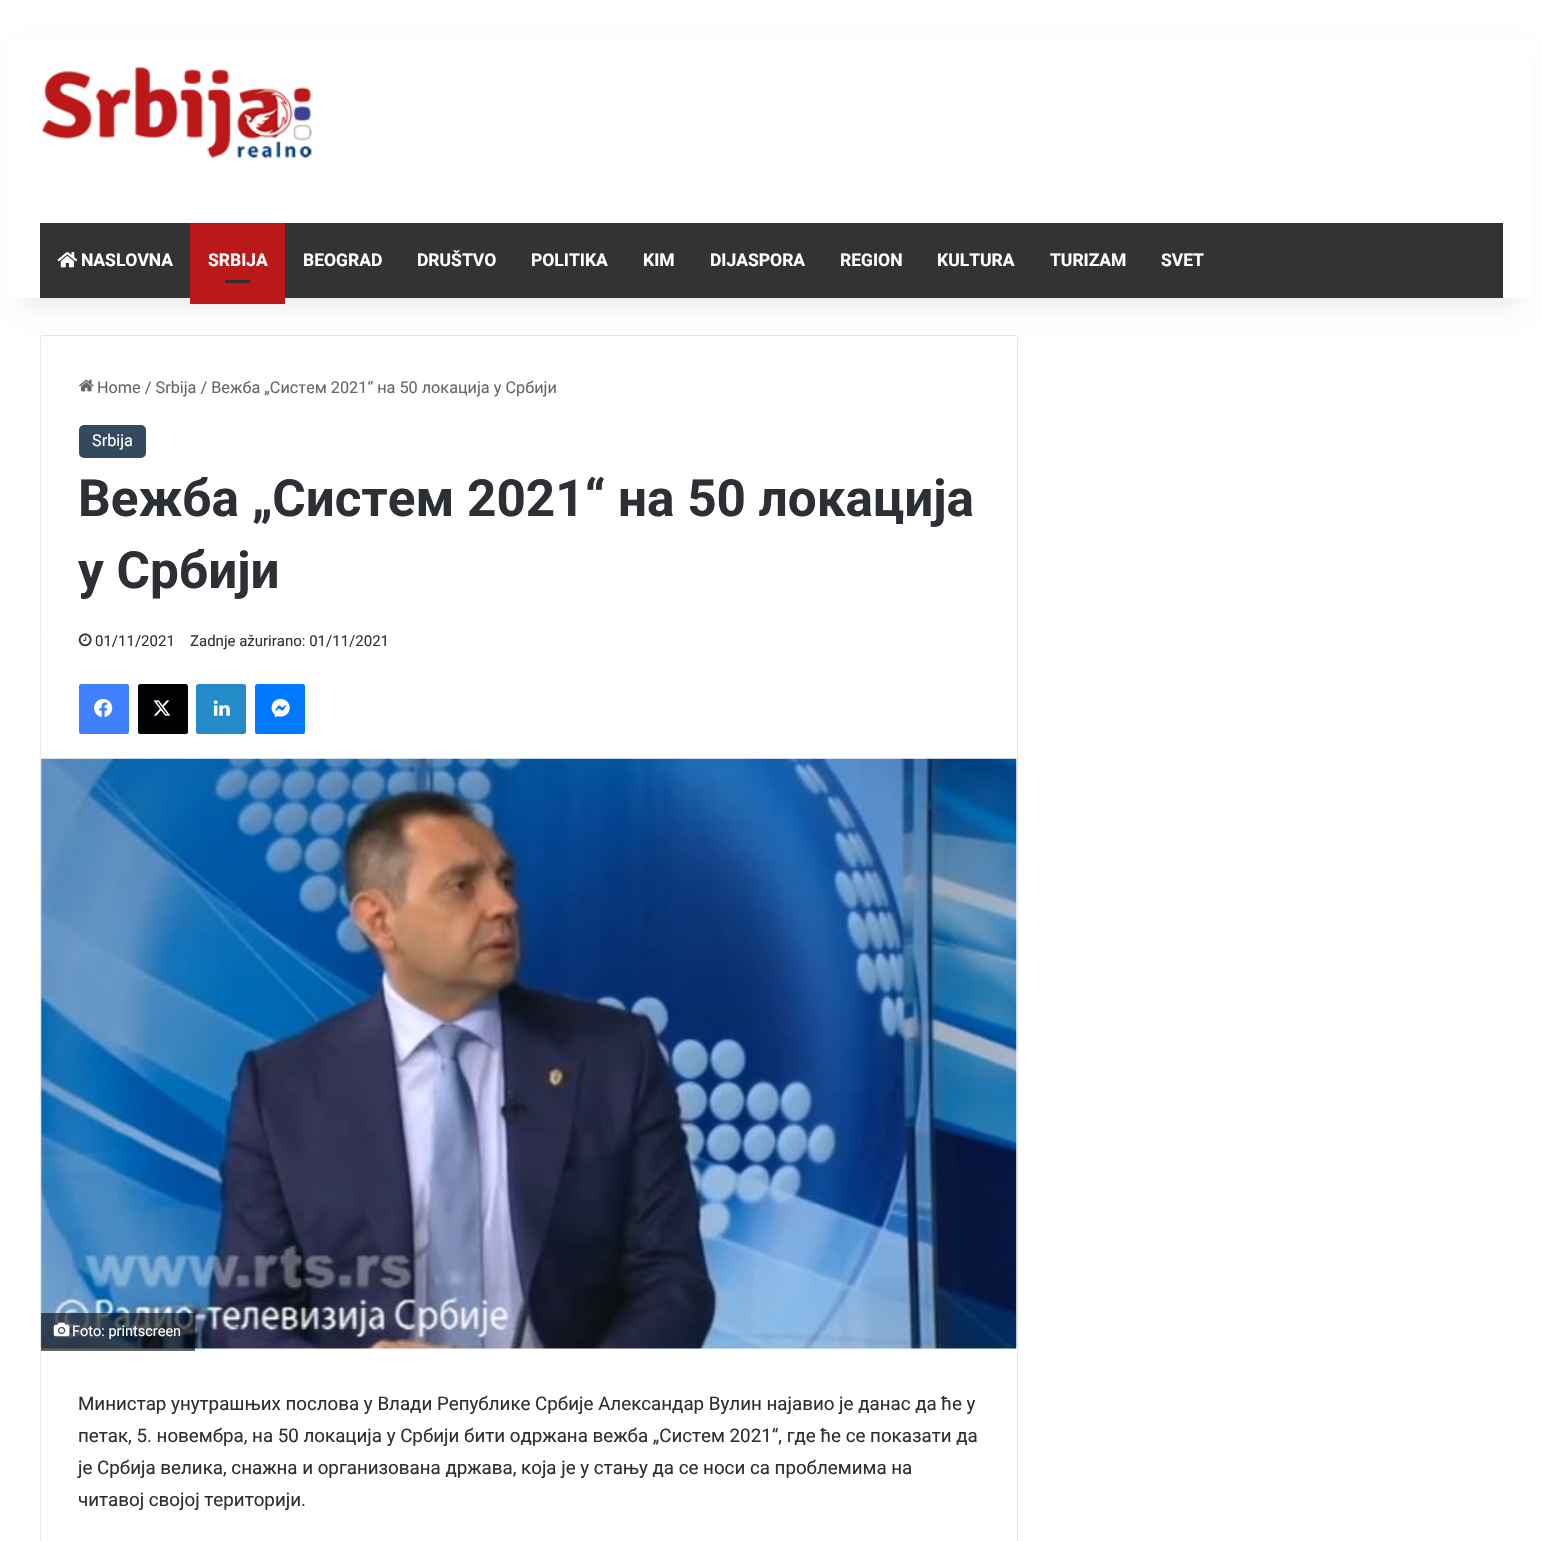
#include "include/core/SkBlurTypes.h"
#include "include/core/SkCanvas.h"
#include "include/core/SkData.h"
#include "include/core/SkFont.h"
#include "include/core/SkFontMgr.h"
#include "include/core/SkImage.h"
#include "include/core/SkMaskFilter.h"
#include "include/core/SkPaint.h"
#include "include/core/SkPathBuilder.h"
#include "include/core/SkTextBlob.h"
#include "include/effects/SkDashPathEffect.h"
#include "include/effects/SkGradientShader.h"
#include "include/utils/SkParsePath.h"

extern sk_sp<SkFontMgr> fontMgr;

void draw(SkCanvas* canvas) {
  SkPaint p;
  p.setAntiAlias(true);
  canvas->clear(SK_ColorWHITE);
  p.setStyle(SkPaint::kStroke_Style);
  p.setStrokeWidth(1);
  p.setColor(SkColorSetRGB(230, 230, 230));
  canvas->drawRoundRect(SkRect::MakeLTRB(40.5f, 335.5f, 1017.5f, 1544.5f), 2, 2, p);
  p.setStyle(SkPaint::kFill_Style);
  p.setColor(SkColorSetARGB(26, 0, 0, 0));
  p.setMaskFilter(SkMaskFilter::MakeBlur(kNormal_SkBlurStyle, 12.5f));
  canvas->drawRect(SkRect::MakeLTRB(25, 56, 1516, 304), p);
  p.setMaskFilter(nullptr);
  p.setColor(SK_ColorWHITE);
  canvas->drawRect(SkRect::MakeLTRB(9, 40, 1532, 298), p);
  canvas->drawImageRect(SkImages::DeferredFromEncodedData(SkData::MakeFromFileName("images/1.png")), SkRect::MakeLTRB(42, 67, 312, 158), SkSamplingOptions());
  p.setColor(SkColorSetRGB(51, 51, 51));
  canvas->drawRect(SkRect::MakeLTRB(40, 223, 1503, 298), p);
  canvas->drawImageRect(SkImages::DeferredFromEncodedData(SkData::MakeFromFileName("images/2.png")), SkRect::MakeLTRB(57, 252, 78, 268), SkSamplingOptions());
  p.setColor(SkColorSetRGB(187, 25, 25));
  canvas->drawRect(SkRect::MakeLTRB(190, 223, 285, 304), p);
  p.setColor(SkColorSetRGB(44, 47, 52));
  canvas->drawRect(SkRect::MakeLTRB(225, 280, 250, 283), p);
  canvas->drawImageRect(SkImages::DeferredFromEncodedData(SkData::MakeFromFileName("images/3.png")), SkRect::MakeLTRB(79, 379, 94, 392), SkSamplingOptions());
  p.setColor(SkColorSetRGB(52, 73, 94));
  canvas->drawRoundRect(SkRect::MakeLTRB(79, 425, 146, 458), 5, 5, p);
  canvas->drawImageRect(SkImages::DeferredFromEncodedData(SkData::MakeFromFileName("images/4.png")), SkRect::MakeLTRB(78, 633, 92, 647), SkSamplingOptions());
  p.setColor(SkColorSetRGB(64, 128, 255));
  canvas->drawRoundRect(SkRect::MakeLTRB(79, 684, 129, 734), 2.5f, 2.5f, p);
  canvas->drawImageRect(SkImages::DeferredFromEncodedData(SkData::MakeFromFileName("images/5.png")), SkRect::MakeLTRB(94, 699, 113, 717), SkSamplingOptions());
  p.setColor(SK_ColorBLACK);
  canvas->drawRoundRect(SkRect::MakeLTRB(138, 684, 188, 734), 2.5f, 2.5f, p);
  canvas->drawImageRect(SkImages::DeferredFromEncodedData(SkData::MakeFromFileName("images/6.png")), SkRect::MakeLTRB(153, 700, 171, 716), SkSamplingOptions());
  p.setColor(SkColorSetRGB(35, 140, 200));
  canvas->drawRoundRect(SkRect::MakeLTRB(196, 684, 246, 734), 2.5f, 2.5f, p);
  canvas->drawImageRect(SkImages::DeferredFromEncodedData(SkData::MakeFromFileName("images/7.png")), SkRect::MakeLTRB(213, 700, 230, 716), SkSamplingOptions());
  p.setColor(SkColorSetRGB(0, 120, 255));
  canvas->drawRoundRect(SkRect::MakeLTRB(255, 684, 305, 734), 2.5f, 2.5f, p);
  canvas->drawImageRect(SkImages::DeferredFromEncodedData(SkData::MakeFromFileName("images/8.png")), SkRect::MakeLTRB(271, 699, 290, 718), SkSamplingOptions());
  canvas->drawImageRect(SkImages::DeferredFromEncodedData(SkData::MakeFromFileName("images/9.png")), SkRect::MakeLTRB(41, 758, 1017, 1351), SkSamplingOptions());
  p.setColor(SkColorSetARGB(153, 0, 0, 0));
  canvas->drawRect(SkRect::MakeLTRB(41, 1313, 195, 1351), p);
  canvas->drawImageRect(SkImages::DeferredFromEncodedData(SkData::MakeFromFileName("images/10.png")), SkRect::MakeLTRB(53, 1322, 70, 1337), SkSamplingOptions());
  SkFont font1(fontMgr->matchFamilyStyle("Roboto", SkFontStyle::Bold()), 17.5f);
  font1.setSubpixel(true);
  p.setColor(SK_ColorWHITE);
  canvas->drawString("NASLOVNA", 81, 266, font1, p);
  canvas->drawString("SRBIJA", 208, 266, font1, p);
  canvas->drawString("BEOGRAD", 303, 266, font1, p);
  canvas->drawString("DRUŠTVO", 417, 266, font1, p);
  canvas->drawString("POLITIKA", 531, 266, font1, p);
  canvas->drawString("KIM", 643, 266, font1, p);
  canvas->drawString("DIJASPORA", 710, 266, font1, p);
  canvas->drawString("REGION", 840, 266, font1, p);
  canvas->drawString("KULTURA", 937, 266, font1, p);
  canvas->drawString("TURIZAM", 1050, 266, font1, p);
  canvas->drawString("SVET", 1161, 266, font1, p);
  SkFont font2(fontMgr->matchFamilyStyle("Roboto", SkFontStyle::Normal()), 16.25f);
  font2.setSubpixel(true);
  p.setColor(SkColorSetRGB(102, 102, 102));
  canvas->drawString("Home / Srbija / Вежба „Систем 2021“ на 50 локација у Србији", 97, 393, font2, p);
  p.setColor(SK_ColorWHITE);
  canvas->drawString("Srbija", 92, 446, font2, p);
  SkFont font3(fontMgr->matchFamilyStyle("Roboto", SkFontStyle::Bold()), 51.25f);
  font3.setSubpixel(true);
  p.setColor(SkColorSetRGB(44, 47, 52));
  canvas->drawString("Вежба „Систем 2021“ на 50 локација", 78, 516, font3, p);
  canvas->drawString("у Србији", 78, 588, font3, p);
  SkFont font4(fontMgr->matchFamilyStyle("Roboto", SkFontStyle::Normal()), 15);
  font4.setSubpixel(true);
  p.setColor(SkColorSetRGB(51, 51, 51));
  canvas->drawString("01/11/2021", 95, 646, font4, p);
  canvas->drawString("Zadnje ažurirano: 01/11/2021", 190, 646, font4, p);
  SkFont font5(fontMgr->matchFamilyStyle("Roboto", SkFontStyle::Normal()), 14.5f);
  font5.setSubpixel(true);
  p.setColor(SK_ColorWHITE);
  canvas->drawString("Foto: printscreen", 72, 1336, font5, p);
  SkFont font6(fontMgr->matchFamilyStyle("Roboto", SkFontStyle::Normal()), 18.75f);
  font6.setSubpixel(true);
  p.setColor(SkColorSetRGB(44, 47, 52));
  canvas->drawString("Министар унутрашњих послова у Влади Републике Србије Александар Вулин најавио је данас да ће у", 78, 1410, font6, p);
  canvas->drawString("петак, 5. новембра, на 50 локација у Србији бити одржана вежба „Систем 2021“, где ће се показати да", 78, 1442, font6, p);
  canvas->drawString("је Србија велика, снажна и организована држава, која је у стању да се носи са проблемима на", 78, 1474, font6, p);
  canvas->drawString("читавој својој територији.", 78, 1506, font6, p);
}
